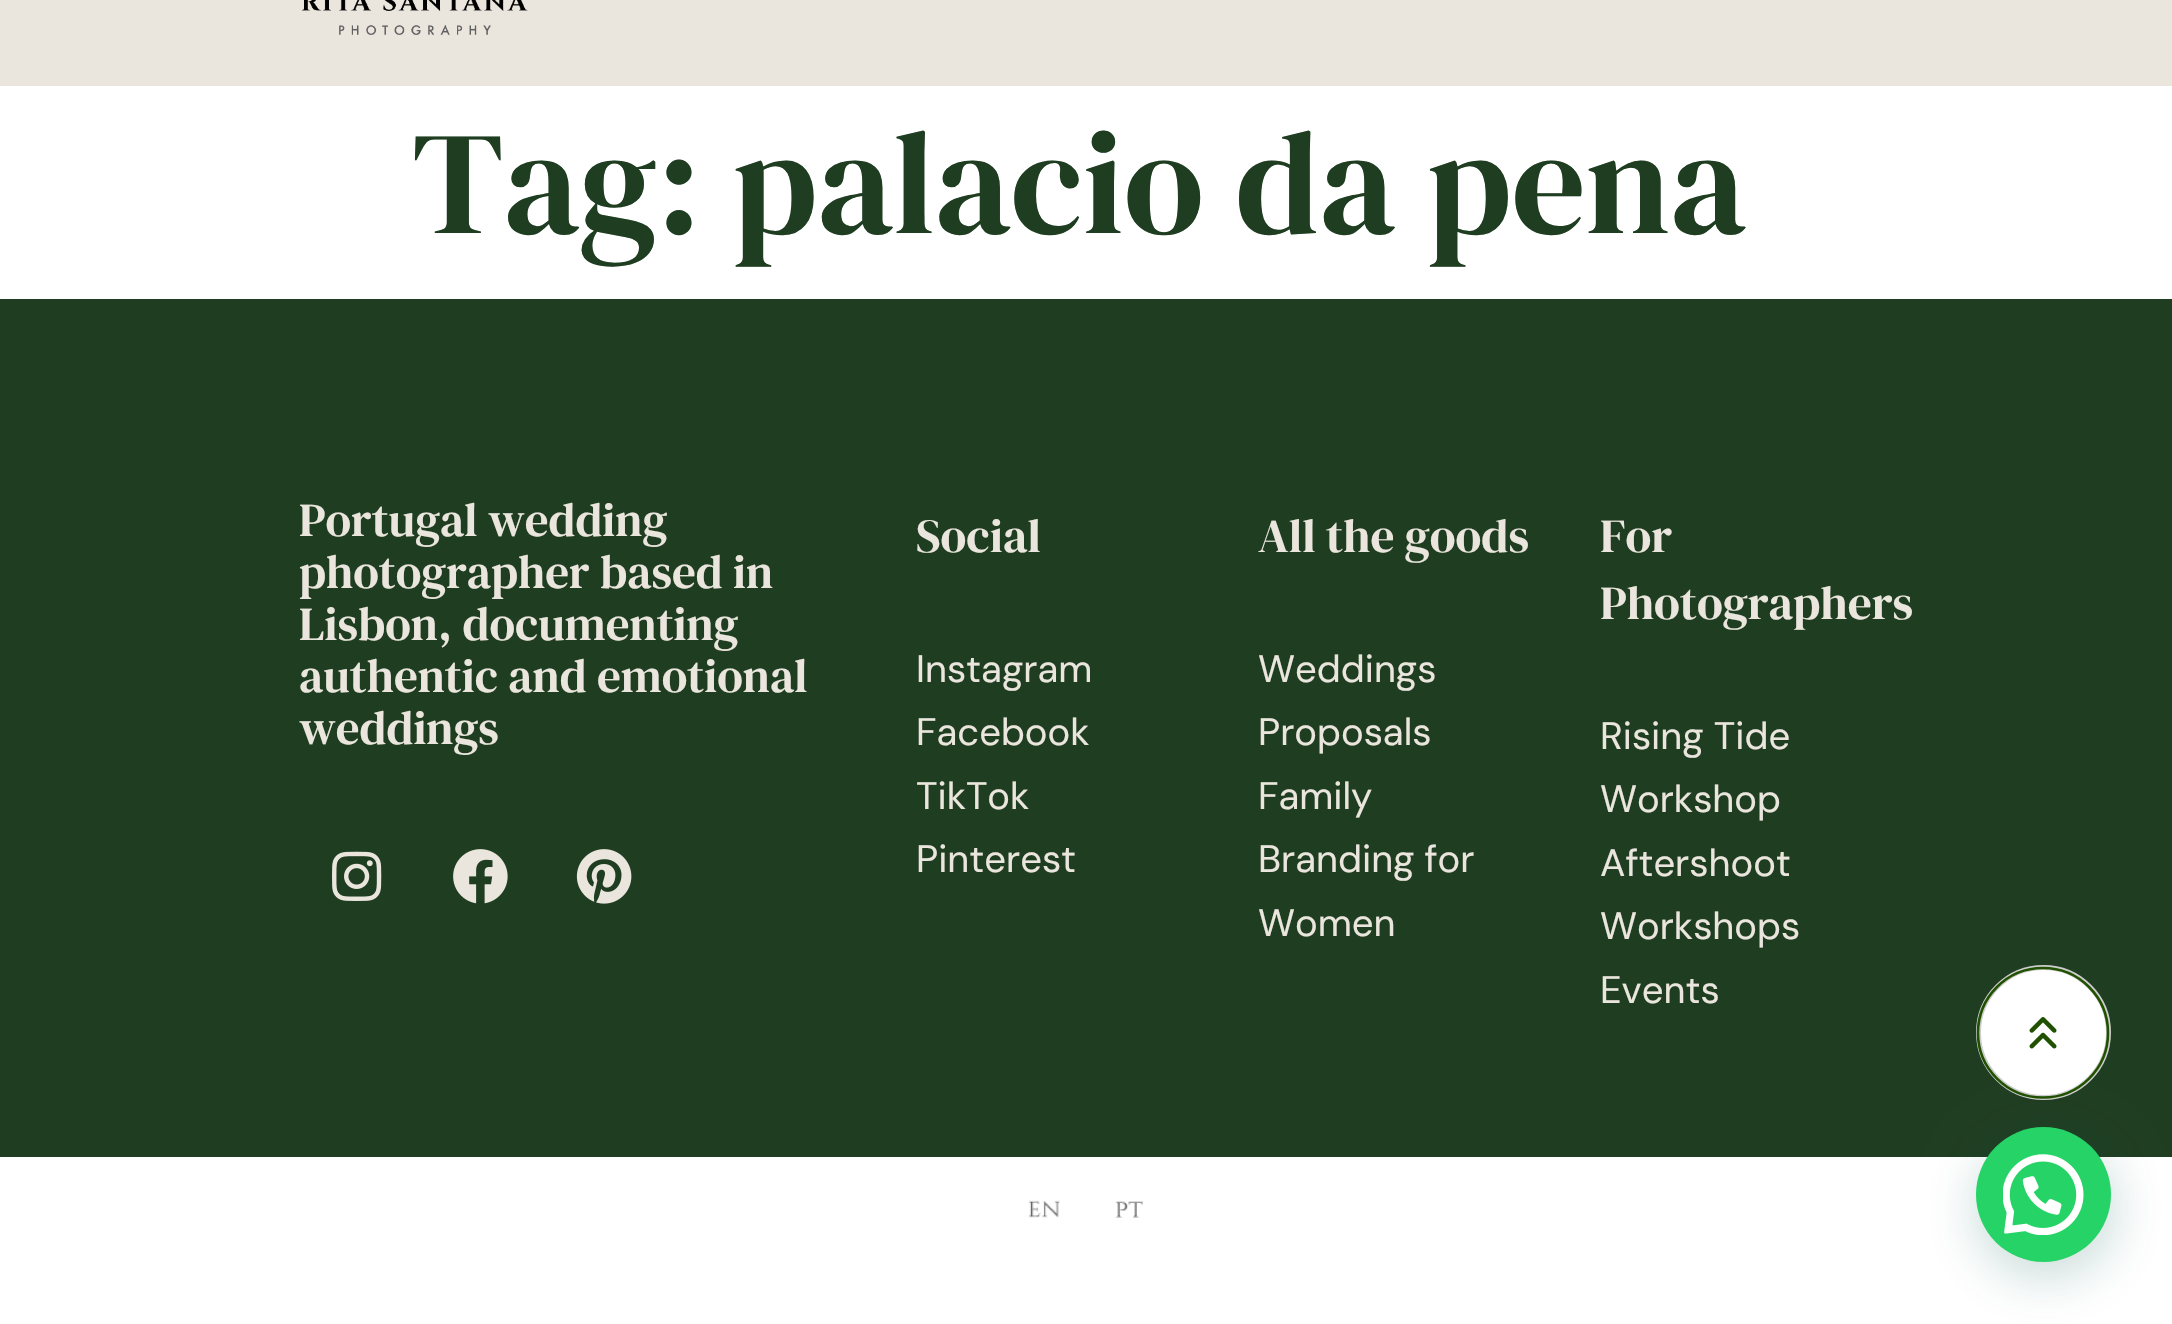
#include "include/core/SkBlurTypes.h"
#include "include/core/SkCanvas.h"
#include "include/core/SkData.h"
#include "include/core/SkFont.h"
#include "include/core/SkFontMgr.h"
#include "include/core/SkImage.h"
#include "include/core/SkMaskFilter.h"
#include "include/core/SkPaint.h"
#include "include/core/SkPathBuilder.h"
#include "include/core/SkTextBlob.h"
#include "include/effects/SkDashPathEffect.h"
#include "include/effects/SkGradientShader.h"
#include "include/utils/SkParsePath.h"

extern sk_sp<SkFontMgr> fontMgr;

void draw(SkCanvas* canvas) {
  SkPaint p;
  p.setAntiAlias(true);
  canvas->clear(SK_ColorWHITE);
  p.setColor(SkColorSetRGB(235, 230, 221));
  canvas->drawRect(SkRect::MakeLTRB(0, 0, 2172, 86), p);
  canvas->drawImageRect(SkImages::DeferredFromEncodedData(SkData::MakeFromFileName("images/1.png")), SkRect::MakeLTRB(301, 0, 528, 35), SkSamplingOptions());
  p.setColor(SkColorSetRGB(31, 61, 33));
  canvas->drawRect(SkRect::MakeLTRB(0, 299, 2172, 1157), p);
  canvas->drawImageRect(SkImages::DeferredFromEncodedData(SkData::MakeFromFileName("images/2.png")), SkRect::MakeLTRB(332, 851, 382, 901), SkSamplingOptions());
  canvas->drawImageRect(SkImages::DeferredFromEncodedData(SkData::MakeFromFileName("images/3.png")), SkRect::MakeLTRB(453, 849, 508, 904), SkSamplingOptions());
  canvas->drawImageRect(SkImages::DeferredFromEncodedData(SkData::MakeFromFileName("images/4.png")), SkRect::MakeLTRB(576, 849, 632, 904), SkSamplingOptions());
  p.setColor(SkColorSetARGB(61, 7, 94, 84));
  p.setMaskFilter(SkMaskFilter::MakeBlur(kNormal_SkBlurStyle, 27));
  canvas->drawRoundRect(SkRect::MakeLTRB(1978, 1141, 2113, 1276), 67.5f, 67.5f, p);
  p.setMaskFilter(nullptr);
  p.setColor(SK_ColorWHITE);
  canvas->drawCircle(2043.5f, 1032.5f, 65, p);
  p.setStyle(SkPaint::kStroke_Style);
  p.setStrokeWidth(5);
  p.setColor(SkColorSetRGB(204, 204, 204));
  canvas->drawCircle(2043.5f, 1032.5f, 65, p);
  p.setStrokeWidth(2.6f);
  p.setColor(SkColorSetRGB(32, 81, 0));
  canvas->drawPath(SkPathBuilder().moveTo(2043, 968).cubicTo(2079, 968, 2108, 997, 2108, 1033).cubicTo(2108, 1068.5f, 2079, 1097.5f, 2043, 1097.5f).cubicTo(2007, 1097.5f, 1978, 1068.5f, 1978, 1033).cubicTo(1978, 997, 2007, 968, 2043, 968).detach(), p);
  canvas->drawImageRect(SkImages::DeferredFromEncodedData(SkData::MakeFromFileName("images/5.png")), SkRect::MakeLTRB(2029, 1017, 2057, 1049), SkSamplingOptions());
  canvas->drawImageRect(SkImages::DeferredFromEncodedData(SkData::MakeFromFileName("images/6.png")), SkRect::MakeLTRB(1028, 1200, 1060, 1218), SkSamplingOptions());
  canvas->drawImageRect(SkImages::DeferredFromEncodedData(SkData::MakeFromFileName("images/7.png")), SkRect::MakeLTRB(1115, 1201, 1143, 1218), SkSamplingOptions());
  p.setStyle(SkPaint::kFill_Style);
  p.setColor(SkColorSetRGB(37, 211, 102));
  canvas->drawCircle(2043.5f, 1194.5f, 67.5f, p);
  canvas->drawImageRect(SkImages::DeferredFromEncodedData(SkData::MakeFromFileName("images/8.png")), SkRect::MakeLTRB(2003, 1154, 2084, 1235), SkSamplingOptions());
  SkFont font1(fontMgr->matchFamilyStyle("DM Serif Display", SkFontStyle::Normal()), 146.25f);
  font1.setSubpixel(true);
  p.setColor(SkColorSetRGB(31, 61, 33));
  canvas->drawString("Tag: palacio da pena", 412, 233, font1, p);
  SkFont font2(fontMgr->matchFamilyStyle("DM Serif Text", SkFontStyle::Normal()), 47.25f);
  font2.setSubpixel(true);
  p.setColor(SkColorSetRGB(235, 230, 221));
  canvas->drawString("Portugal wedding", 299, 536, font2, p);
  canvas->drawString("photographer based in", 299, 588, font2, p);
  canvas->drawString("Lisbon, documenting", 299, 640, font2, p);
  canvas->drawString("authentic and emotional", 299, 692, font2, p);
  canvas->drawString("weddings", 299, 744, font2, p);
  SkFont font3(fontMgr->matchFamilyStyle("DM Serif Display", SkFontStyle::Normal()), 47.25f);
  font3.setSubpixel(true);
  canvas->drawString("Social", 916, 552, font3, p);
  SkFont font4(fontMgr->matchFamilyStyle("DM Sans", SkFontStyle::Normal()), 38.25f);
  font4.setSubpixel(true);
  canvas->drawString("Instagram", 916, 682, font4, p);
  canvas->drawString("Facebook", 916, 745, font4, p);
  canvas->drawString("TikTok", 916, 809, font4, p);
  canvas->drawString("Pinterest", 916, 872, font4, p);
  canvas->drawString("All the goods", 1258, 552, font3, p);
  canvas->drawString("Weddings", 1258, 682, font4, p);
  canvas->drawString("Proposals", 1258, 745, font4, p);
  canvas->drawString("Family", 1258, 809, font4, p);
  canvas->drawString("Branding for", 1258, 872, font4, p);
  canvas->drawString("Women", 1258, 936, font4, p);
  canvas->drawString("For", 1600, 552, font3, p);
  canvas->drawString("Photographers", 1600, 619, font3, p);
  canvas->drawString("Rising Tide", 1600, 749, font4, p);
  canvas->drawString("Workshop", 1600, 812, font4, p);
  canvas->drawString("Aftershoot", 1600, 876, font4, p);
  canvas->drawString("Workshops", 1600, 939, font4, p);
  canvas->drawString("Events", 1600, 1003, font4, p);
}
